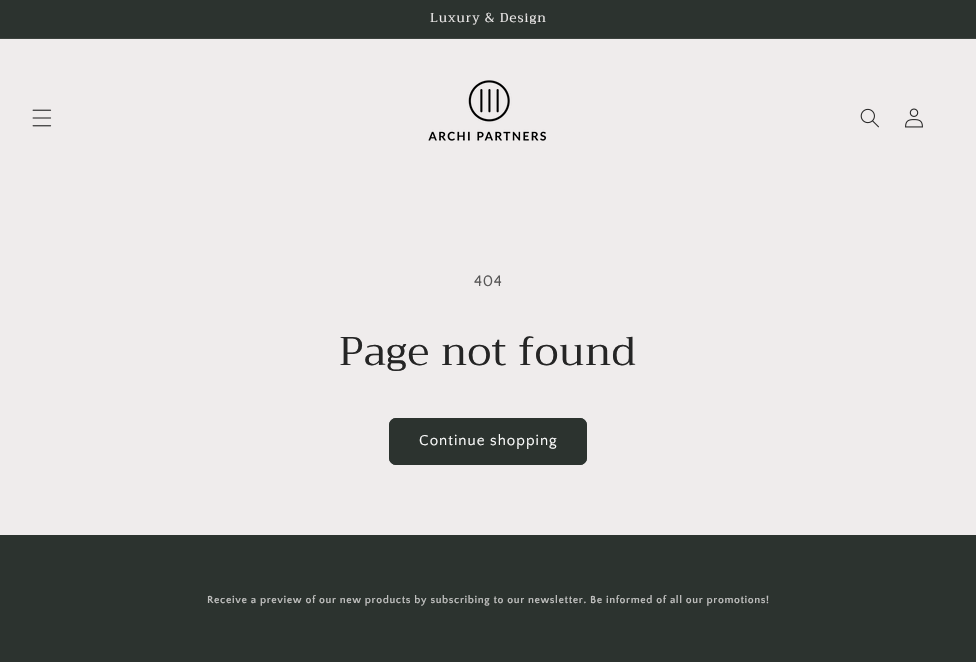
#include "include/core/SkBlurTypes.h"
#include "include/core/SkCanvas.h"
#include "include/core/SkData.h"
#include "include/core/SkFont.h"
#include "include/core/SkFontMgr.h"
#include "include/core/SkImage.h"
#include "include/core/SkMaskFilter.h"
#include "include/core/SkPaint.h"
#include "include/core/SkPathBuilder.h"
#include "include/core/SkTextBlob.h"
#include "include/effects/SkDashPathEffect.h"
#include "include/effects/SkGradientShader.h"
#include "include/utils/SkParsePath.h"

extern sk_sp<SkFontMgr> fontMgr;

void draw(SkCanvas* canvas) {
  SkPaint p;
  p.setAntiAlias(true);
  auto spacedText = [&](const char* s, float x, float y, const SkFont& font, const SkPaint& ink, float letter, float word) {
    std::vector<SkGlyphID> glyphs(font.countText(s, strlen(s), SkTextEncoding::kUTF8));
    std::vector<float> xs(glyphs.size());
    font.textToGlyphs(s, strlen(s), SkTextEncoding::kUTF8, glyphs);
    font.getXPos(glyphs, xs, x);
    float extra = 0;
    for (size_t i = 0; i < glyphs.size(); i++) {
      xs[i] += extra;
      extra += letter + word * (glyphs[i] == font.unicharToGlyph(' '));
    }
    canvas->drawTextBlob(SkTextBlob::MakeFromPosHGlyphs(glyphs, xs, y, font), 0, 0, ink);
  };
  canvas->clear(SkColorSetRGB(239, 236, 236));
  p.setColor(SkColorSetRGB(44, 51, 47));
  canvas->drawRect(SkRect::MakeLTRB(0, 0, 976, 38), p);
  p.setColor(SkColorSetRGB(60, 66, 62));
  canvas->drawRect(SkRect::MakeLTRB(0, 38, 976, 39), p);
  canvas->drawImageRect(SkImages::DeferredFromEncodedData(SkData::MakeFromFileName("images/1.png")), SkRect::MakeLTRB(32, 109, 52, 127), SkSamplingOptions());
  canvas->drawImageRect(SkImages::DeferredFromEncodedData(SkData::MakeFromFileName("images/2.png")), SkRect::MakeLTRB(428, 80, 547, 141), SkSamplingOptions());
  canvas->drawImageRect(SkImages::DeferredFromEncodedData(SkData::MakeFromFileName("images/3.png")), SkRect::MakeLTRB(860, 108, 879, 128), SkSamplingOptions());
  canvas->drawImageRect(SkImages::DeferredFromEncodedData(SkData::MakeFromFileName("images/4.png")), SkRect::MakeLTRB(905, 108, 923, 128), SkSamplingOptions());
  p.setColor(SkColorSetRGB(44, 51, 47));
  canvas->drawRoundRect(SkRect::MakeLTRB(389, 418, 587, 465), 7, 7, p);
  p.setStyle(SkPaint::kStroke_Style);
  p.setStrokeWidth(1);
  canvas->drawRoundRect(SkRect::MakeLTRB(389.5f, 418.5f, 586.5f, 464.5f), 6.5f, 6.5f, p);
  p.setStyle(SkPaint::kFill_Style);
  canvas->drawRect(SkRect::MakeLTRB(0, 535, 976, 662), p);
  SkFont font1(fontMgr->matchFamilyStyle("Trirong", SkFontStyle::Normal()), 13);
  font1.setSubpixel(true);
  p.setColor(SkColorSetRGB(239, 236, 236));
  spacedText("Luxury & Design", 430, 22, font1, p, 1, 0);
  SkFont font2(fontMgr->matchFamilyStyle("Quattrocento Sans", SkFontStyle::Normal()), 16);
  font2.setSubpixel(true);
  p.setColor(SkColorSetRGB(88, 87, 87));
  spacedText("404", 474, 286, font2, p, 0.6f, 0);
  SkFont font3(fontMgr->matchFamilyStyle("Trirong", SkFontStyle::Normal()), 40);
  font3.setSubpixel(true);
  p.setColor(SkColorSetRGB(37, 37, 37));
  spacedText("Page not found", 339, 365, font3, p, 0.6f, 0);
  SkFont font4(fontMgr->matchFamilyStyle("Quattrocento Sans", SkFontStyle::Normal()), 15);
  font4.setSubpixel(true);
  p.setColor(SK_ColorWHITE);
  spacedText("Continue shopping", 419, 445, font4, p, 1, 0);
  SkFont font5(fontMgr->matchFamilyStyle("Quattrocento Sans", SkFontStyle::Bold()), 10.72f);
  font5.setSubpixel(true);
  p.setColor(SkColorSetRGB(190, 190, 189));
  spacedText("Receive a preview of our new products by subscribing to our newsletter. Be informed of all our promotions!", 207, 603, font5, p, 0.6f, 0);
}
